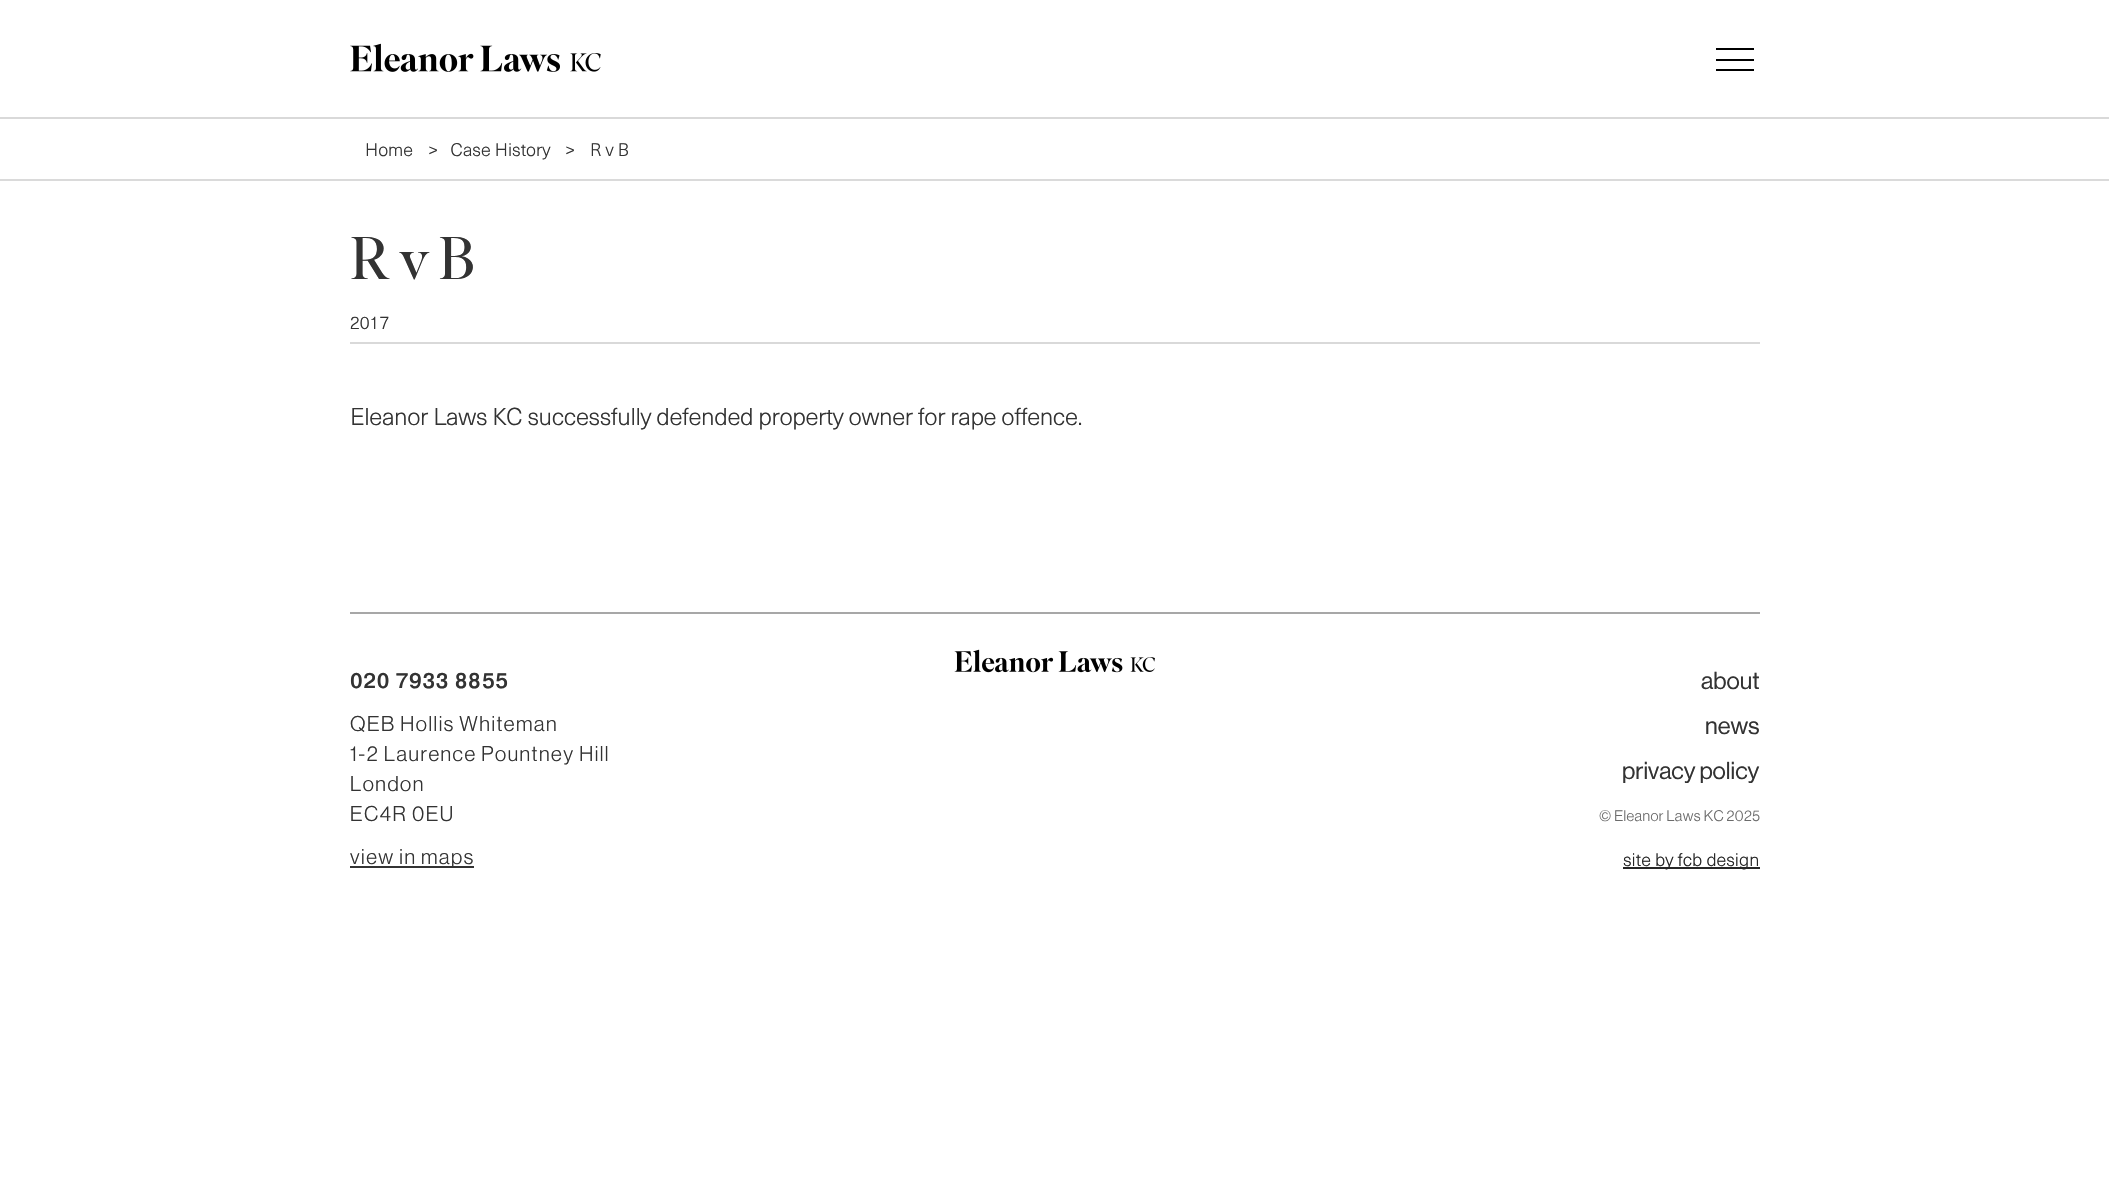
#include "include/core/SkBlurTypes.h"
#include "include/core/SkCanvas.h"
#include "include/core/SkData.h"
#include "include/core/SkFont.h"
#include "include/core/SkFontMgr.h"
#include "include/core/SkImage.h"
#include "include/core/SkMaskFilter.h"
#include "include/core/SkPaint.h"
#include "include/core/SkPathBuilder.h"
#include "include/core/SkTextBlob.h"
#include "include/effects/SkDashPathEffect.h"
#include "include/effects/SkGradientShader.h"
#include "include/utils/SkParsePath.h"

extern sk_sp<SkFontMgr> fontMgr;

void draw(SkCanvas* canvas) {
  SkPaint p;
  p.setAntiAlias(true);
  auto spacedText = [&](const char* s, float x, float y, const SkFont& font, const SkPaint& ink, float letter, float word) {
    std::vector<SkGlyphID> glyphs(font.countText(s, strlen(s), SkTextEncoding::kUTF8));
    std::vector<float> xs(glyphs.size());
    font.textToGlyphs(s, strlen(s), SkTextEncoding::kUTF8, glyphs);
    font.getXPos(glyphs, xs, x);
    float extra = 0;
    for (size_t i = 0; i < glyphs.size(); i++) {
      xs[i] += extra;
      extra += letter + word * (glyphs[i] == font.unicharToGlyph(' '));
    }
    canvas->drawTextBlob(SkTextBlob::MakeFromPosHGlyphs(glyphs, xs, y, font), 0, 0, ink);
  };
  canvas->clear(SK_ColorWHITE);
  p.setColor(SkColorSetRGB(217, 217, 217));
  canvas->drawRect(SkRect::MakeLTRB(0, 117, 2109, 119), p);
  canvas->drawImageRect(SkImages::DeferredFromEncodedData(SkData::MakeFromFileName("images/1.png")), SkRect::MakeLTRB(350, 43, 601, 72), SkSamplingOptions());
  p.setColor(SK_ColorBLACK);
  canvas->drawRect(SkRect::MakeLTRB(1716, 48, 1754, 50), p);
  canvas->drawRect(SkRect::MakeLTRB(1716, 59, 1754, 61), p);
  canvas->drawRect(SkRect::MakeLTRB(1716, 69, 1754, 71), p);
  p.setColor(SkColorSetRGB(218, 218, 218));
  canvas->drawRect(SkRect::MakeLTRB(0, 179, 2109, 181), p);
  p.setColor(SkColorSetRGB(217, 217, 217));
  canvas->drawRect(SkRect::MakeLTRB(350, 342, 1760, 344), p);
  p.setColor(SkColorSetRGB(167, 167, 167));
  canvas->drawRect(SkRect::MakeLTRB(350, 612, 1760, 614), p);
  canvas->drawImageRect(SkImages::DeferredFromEncodedData(SkData::MakeFromFileName("images/2.png")), SkRect::MakeLTRB(954, 649, 1155, 673), SkSamplingOptions());
  p.setColor(SkColorSetRGB(51, 51, 51));
  canvas->drawRect(SkRect::MakeLTRB(350, 866, 474, 868), p);
  p.setColor(SkColorSetRGB(38, 38, 38));
  canvas->drawRect(SkRect::MakeLTRB(1623, 867, 1760, 869), p);
  SkFont font1(fontMgr->matchFamilyStyle("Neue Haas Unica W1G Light", SkFontStyle(300, SkFontStyle::kNormal_Width, SkFontStyle::kUpright_Slant)), 18);
  font1.setSubpixel(true);
  p.setColor(SkColorSetRGB(51, 51, 51));
  canvas->drawString("Home", 365, 156, font1, p);
  canvas->drawString(">   Case History", 428, 156, font1, p);
  canvas->drawString(">", 565, 156, font1, p);
  canvas->drawString("R v B", 590, 156, font1, p);
  SkFont font2(fontMgr->matchFamilyStyle("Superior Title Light", SkFontStyle(300, SkFontStyle::kNormal_Width, SkFontStyle::kUpright_Slant)), 60);
  font2.setSubpixel(true);
  spacedText("R v B", 350, 279, font2, p, -0.75f, 0);
  canvas->drawString("2017", 350, 329, font1, p);
  SkFont font3(fontMgr->matchFamilyStyle("Neue Haas Unica W1G Light", SkFontStyle(300, SkFontStyle::kNormal_Width, SkFontStyle::kUpright_Slant)), 24);
  font3.setSubpixel(true);
  spacedText("Eleanor Laws KC successfully defended property owner for rape offence.", 350, 425, font3, p, -0.38f, 0);
  SkFont font4(fontMgr->matchFamilyStyle("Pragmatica", SkFontStyle(500, SkFontStyle::kNormal_Width, SkFontStyle::kUpright_Slant)), 21);
  font4.setSubpixel(true);
  spacedText("020 7933 8855", 350, 688, font4, p, 0.75f, 0);
  SkFont font5(fontMgr->matchFamilyStyle("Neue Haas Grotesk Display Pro", SkFontStyle(300, SkFontStyle::kNormal_Width, SkFontStyle::kUpright_Slant)), 21);
  font5.setSubpixel(true);
  spacedText("QEB Hollis Whiteman", 350, 731, font5, p, 1.5f, 0);
  spacedText("1-2 Laurence Pountney Hill", 350, 761, font5, p, 1.5f, 0);
  spacedText("London", 350, 791, font5, p, 1.5f, 0);
  spacedText("EC4R 0EU", 350, 821, font5, p, 1.5f, 0);
  spacedText("view in maps", 350, 864, font5, p, 1.5f, 0);
  SkFont font6(fontMgr->matchFamilyStyle("Neue Haas Grotesk Display Pro", SkFontStyle::Normal()), 24);
  font6.setSubpixel(true);
  canvas->drawString("about", 1701, 689, font6, p);
  canvas->drawString("news", 1705, 734, font6, p);
  canvas->drawString("privacy policy", 1622, 779, font6, p);
  SkFont font7(fontMgr->matchFamilyStyle("Neue Haas Grotesk Display Pro", SkFontStyle(300, SkFontStyle::kNormal_Width, SkFontStyle::kUpright_Slant)), 15);
  font7.setSubpixel(true);
  p.setColor(SkColorSetRGB(107, 107, 107));
  spacedText("© Eleanor Laws KC 2025", 1599, 821, font7, p, 0.4f, 0);
  p.setColor(SkColorSetRGB(37, 37, 37));
  canvas->drawString("site by fcb design", 1623, 866, font1, p);
}
